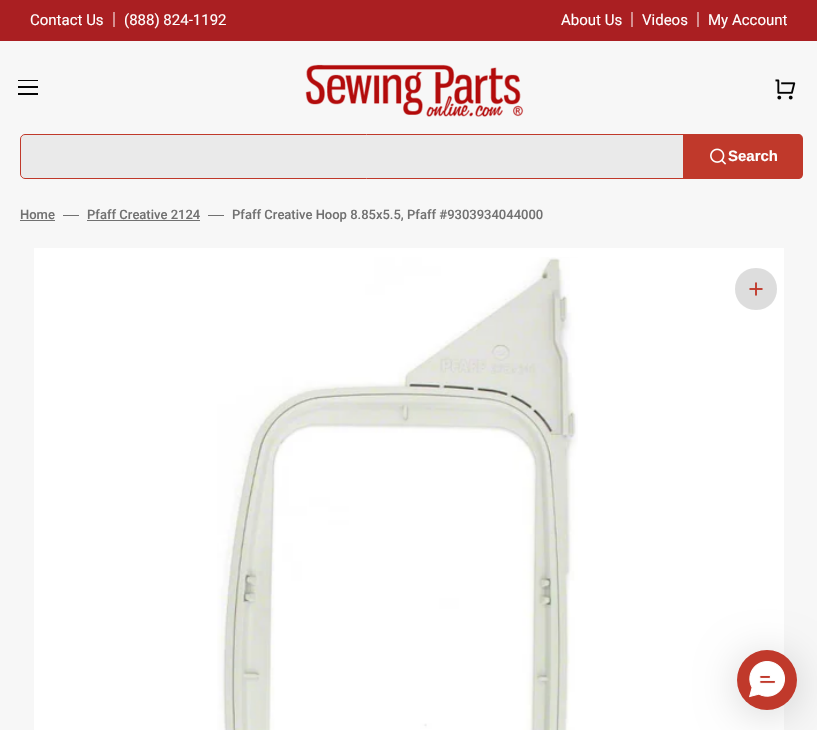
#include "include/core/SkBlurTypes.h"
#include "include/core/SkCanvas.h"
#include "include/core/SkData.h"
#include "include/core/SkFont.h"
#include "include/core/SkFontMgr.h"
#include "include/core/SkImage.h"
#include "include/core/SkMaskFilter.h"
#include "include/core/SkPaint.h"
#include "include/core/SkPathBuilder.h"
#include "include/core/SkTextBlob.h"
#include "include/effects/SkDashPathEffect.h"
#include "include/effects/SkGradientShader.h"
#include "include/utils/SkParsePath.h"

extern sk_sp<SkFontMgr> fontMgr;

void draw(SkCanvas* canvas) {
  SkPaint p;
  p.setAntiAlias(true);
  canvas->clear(SkColorSetRGB(247, 247, 247));
  p.setColor(SkColorSetRGB(170, 31, 34));
  canvas->drawRect(SkRect::MakeLTRB(0, 0, 817, 41), p);
  p.setColor(SkColorSetRGB(213, 143, 145));
  canvas->drawRect(SkRect::MakeLTRB(113, 12, 115, 27), p);
  canvas->drawRect(SkRect::MakeLTRB(631, 12, 633, 27), p);
  canvas->drawRect(SkRect::MakeLTRB(697, 12, 699, 27), p);
  p.setColor(SkColorSetRGB(4, 4, 4));
  canvas->drawRect(SkRect::MakeLTRB(18, 80, 38, 81), p);
  canvas->drawRect(SkRect::MakeLTRB(18, 86, 38, 88), p);
  canvas->drawRect(SkRect::MakeLTRB(18, 93, 38, 95), p);
  canvas->drawImageRect(SkImages::DeferredFromEncodedData(SkData::MakeFromFileName("images/1.png")), SkRect::MakeLTRB(305, 64, 524, 117), SkSamplingOptions());
  canvas->drawImageRect(SkImages::DeferredFromEncodedData(SkData::MakeFromFileName("images/2.png")), SkRect::MakeLTRB(775, 79, 796, 100), SkSamplingOptions());
  p.setColor(SK_ColorWHITE);
  canvas->drawRoundRect(SkRect::MakeLTRB(20, 134, 797, 179), 4, 4, p);
  p.setColor(SkColorSetRGB(234, 234, 234));
  canvas->drawRoundRect(SkRect::MakeLTRB(20.5f, 134.5f, 712.5f, 178.5f), 4.5f, 4.5f, p);
  p.setStyle(SkPaint::kStroke_Style);
  p.setStrokeWidth(1);
  p.setColor(SkColorSetRGB(192, 57, 43));
  canvas->drawRoundRect(SkRect::MakeLTRB(20.5f, 134.5f, 712.5f, 178.5f), 4.5f, 4.5f, p);
  p.setStyle(SkPaint::kFill_Style);
  canvas->drawPath(SkPathBuilder().moveTo(683, 134).lineTo(798, 134).cubicTo(801, 134, 803, 136, 803, 139).lineTo(803, 174).cubicTo(803, 177, 801, 179, 798, 179).lineTo(683, 179).close().detach(), p);
  canvas->drawImageRect(SkImages::DeferredFromEncodedData(SkData::MakeFromFileName("images/3.png")), SkRect::MakeLTRB(710, 148, 727, 165), SkSamplingOptions());
  p.setColor(SkColorSetRGB(113, 113, 113));
  canvas->drawRect(SkRect::MakeLTRB(20, 220, 55, 221), p);
  canvas->drawRect(SkRect::MakeLTRB(63, 215, 79, 216), p);
  canvas->drawRect(SkRect::MakeLTRB(87, 220, 200, 221), p);
  canvas->drawRect(SkRect::MakeLTRB(208, 215, 224, 216), p);
  p.setColor(SK_ColorWHITE);
  canvas->drawRect(SkRect::MakeLTRB(34, 248, 784, 730), p);
  canvas->drawImageRect(SkImages::DeferredFromEncodedData(SkData::MakeFromFileName("images/4.png")), SkRect::MakeLTRB(217, 257, 578, 730), SkSamplingOptions());
  p.setColor(SkColorSetRGB(247, 247, 247));
  canvas->drawCircle(756, 289, 21, p);
  p.setColor(SkColorSetARGB(26, 4, 4, 4));
  canvas->drawPath(SkPathBuilder().moveTo(756, 268).cubicTo(784, 268, 784, 310, 756, 310).cubicTo(728, 310, 728, 268, 756, 268).close().detach(), p);
  canvas->drawImageRect(SkImages::DeferredFromEncodedData(SkData::MakeFromFileName("images/5.png")), SkRect::MakeLTRB(749, 282, 763, 296), SkSamplingOptions());
  p.setColor(SkColorSetARGB(41, 0, 0, 0));
  p.setMaskFilter(SkMaskFilter::MakeBlur(kNormal_SkBlurStyle, 20));
  canvas->drawRoundRect(SkRect::MakeLTRB(737, 655, 797, 715), 30, 30, p);
  p.setMaskFilter(nullptr);
  p.setColor(SkColorSetRGB(192, 57, 43));
  canvas->drawCircle(767, 680, 30, p);
  canvas->drawImageRect(SkImages::DeferredFromEncodedData(SkData::MakeFromFileName("images/6.png")), SkRect::MakeLTRB(749, 661, 785, 698), SkSamplingOptions());
  SkFont font1(fontMgr->matchFamilyStyle("Roboto", SkFontStyle::Normal()), 15);
  font1.setSubpixel(true);
  p.setColor(SK_ColorWHITE);
  canvas->drawString("Contact Us", 30, 25, font1, p);
  canvas->drawString("(888) 824-1192", 124, 25, font1, p);
  canvas->drawString("About Us", 561, 25, font1, p);
  canvas->drawString("Videos", 642, 25, font1, p);
  canvas->drawString("My Account", 708, 25, font1, p);
  SkFont font2(fontMgr->matchFamilyStyle("Liberation Sans", SkFontStyle::Bold()), 15);
  font2.setSubpixel(true);
  canvas->drawString("Search", 728, 161, font2, p);
  SkFont font3(fontMgr->matchFamilyStyle("Roboto", SkFontStyle(500, SkFontStyle::kNormal_Width, SkFontStyle::kUpright_Slant)), 13);
  font3.setSubpixel(true);
  p.setColor(SkColorSetRGB(113, 113, 113));
  canvas->drawString("Home", 20, 219, font3, p);
  canvas->drawString("Pfaff Creative 2124", 87, 219, font3, p);
  canvas->drawString("Pfaff Creative Hoop 8.85x5.5, Pfaff #9303934044000", 232, 219, font3, p);
}
